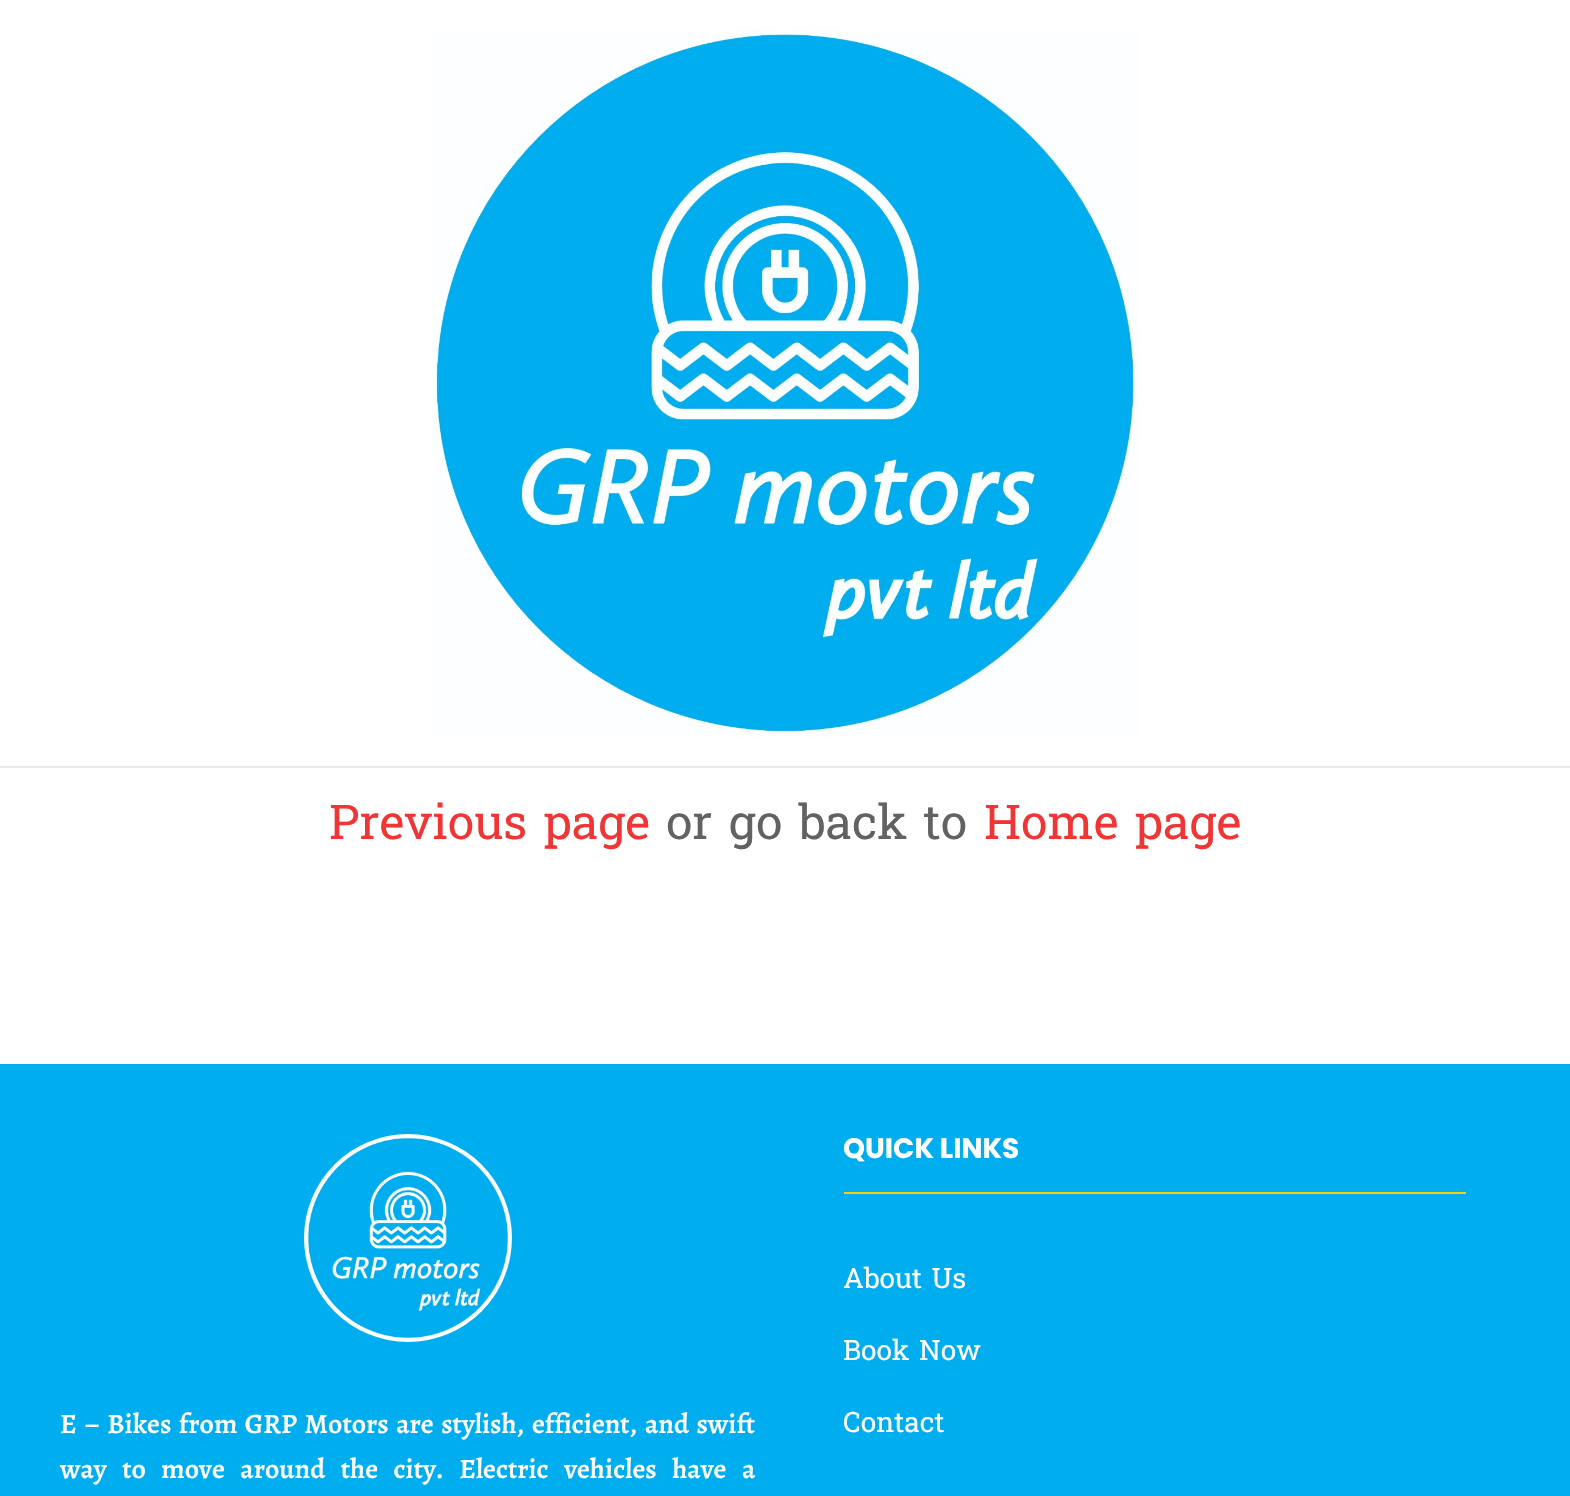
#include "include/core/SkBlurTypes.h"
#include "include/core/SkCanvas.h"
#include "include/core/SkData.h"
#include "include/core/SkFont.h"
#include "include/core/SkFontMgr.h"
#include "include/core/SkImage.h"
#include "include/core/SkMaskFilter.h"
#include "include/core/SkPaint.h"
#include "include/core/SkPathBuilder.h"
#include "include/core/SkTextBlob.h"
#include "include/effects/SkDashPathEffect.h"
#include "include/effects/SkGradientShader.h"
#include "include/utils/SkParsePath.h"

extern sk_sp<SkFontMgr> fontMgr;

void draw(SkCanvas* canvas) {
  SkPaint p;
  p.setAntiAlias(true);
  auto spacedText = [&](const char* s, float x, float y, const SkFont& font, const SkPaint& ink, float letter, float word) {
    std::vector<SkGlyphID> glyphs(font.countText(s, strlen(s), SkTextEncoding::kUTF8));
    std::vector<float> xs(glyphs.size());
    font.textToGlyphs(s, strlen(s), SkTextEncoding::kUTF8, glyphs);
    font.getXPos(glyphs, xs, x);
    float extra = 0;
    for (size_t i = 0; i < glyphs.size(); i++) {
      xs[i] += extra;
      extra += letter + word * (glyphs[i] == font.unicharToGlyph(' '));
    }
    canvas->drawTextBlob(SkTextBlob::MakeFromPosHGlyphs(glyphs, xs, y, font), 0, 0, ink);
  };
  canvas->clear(SK_ColorWHITE);
  p.setColor(SkColorSetRGB(235, 235, 235));
  canvas->drawRect(SkRect::MakeLTRB(0, 766, 1570, 768), p);
  canvas->drawImageRect(SkImages::DeferredFromEncodedData(SkData::MakeFromFileName("images/1.png")), SkRect::MakeLTRB(431, 29, 1139, 737), SkSamplingOptions());
  p.setColor(SkColorSetRGB(0, 173, 239));
  canvas->drawRect(SkRect::MakeLTRB(0, 1064, 1570, 1496), p);
  p.setColor(SkColorSetRGB(255, 205, 5));
  canvas->drawRect(SkRect::MakeLTRB(844, 1192, 1466, 1194), p);
  canvas->drawImageRect(SkImages::DeferredFromEncodedData(SkData::MakeFromFileName("images/2.png")), SkRect::MakeLTRB(304, 1134, 512, 1342), SkSamplingOptions());
  SkFont font1(fontMgr->matchFamilyStyle("Battambang", SkFontStyle::Normal()), 48);
  font1.setSubpixel(true);
  p.setColor(SkColorSetRGB(239, 54, 54));
  canvas->drawString("Previous page", 329, 839, font1, p);
  p.setColor(SkColorSetRGB(98, 98, 98));
  canvas->drawString("or go back to", 666, 839, font1, p);
  p.setColor(SkColorSetRGB(239, 54, 54));
  canvas->drawString("Home page", 984, 839, font1, p);
  SkFont font2(fontMgr->matchFamilyStyle("Poppins", SkFontStyle::Bold()), 28);
  font2.setSubpixel(true);
  p.setColor(SK_ColorWHITE);
  canvas->drawString("QUICK LINKS", 843, 1158, font2, p);
  SkFont font3(fontMgr->matchFamilyStyle("Battambang", SkFontStyle::Normal()), 28);
  font3.setSubpixel(true);
  canvas->drawString("About Us", 843, 1288, font3, p);
  canvas->drawString("Book Now", 843, 1360, font3, p);
  canvas->drawString("Contact", 843, 1432, font3, p);
  SkFont font4(fontMgr->matchFamilyStyle("Alegreya", SkFontStyle(600, SkFontStyle::kNormal_Width, SkFontStyle::kUpright_Slant)), 28);
  font4.setSubpixel(true);
  spacedText("E – Bikes from GRP Motors are stylish, efficient, and swift", 60, 1433, font4, p, 0, 2.5f);
  spacedText("way to move around the city. Electric vehicles have a", 60, 1478, font4, p, 0, 10.5f);
}
